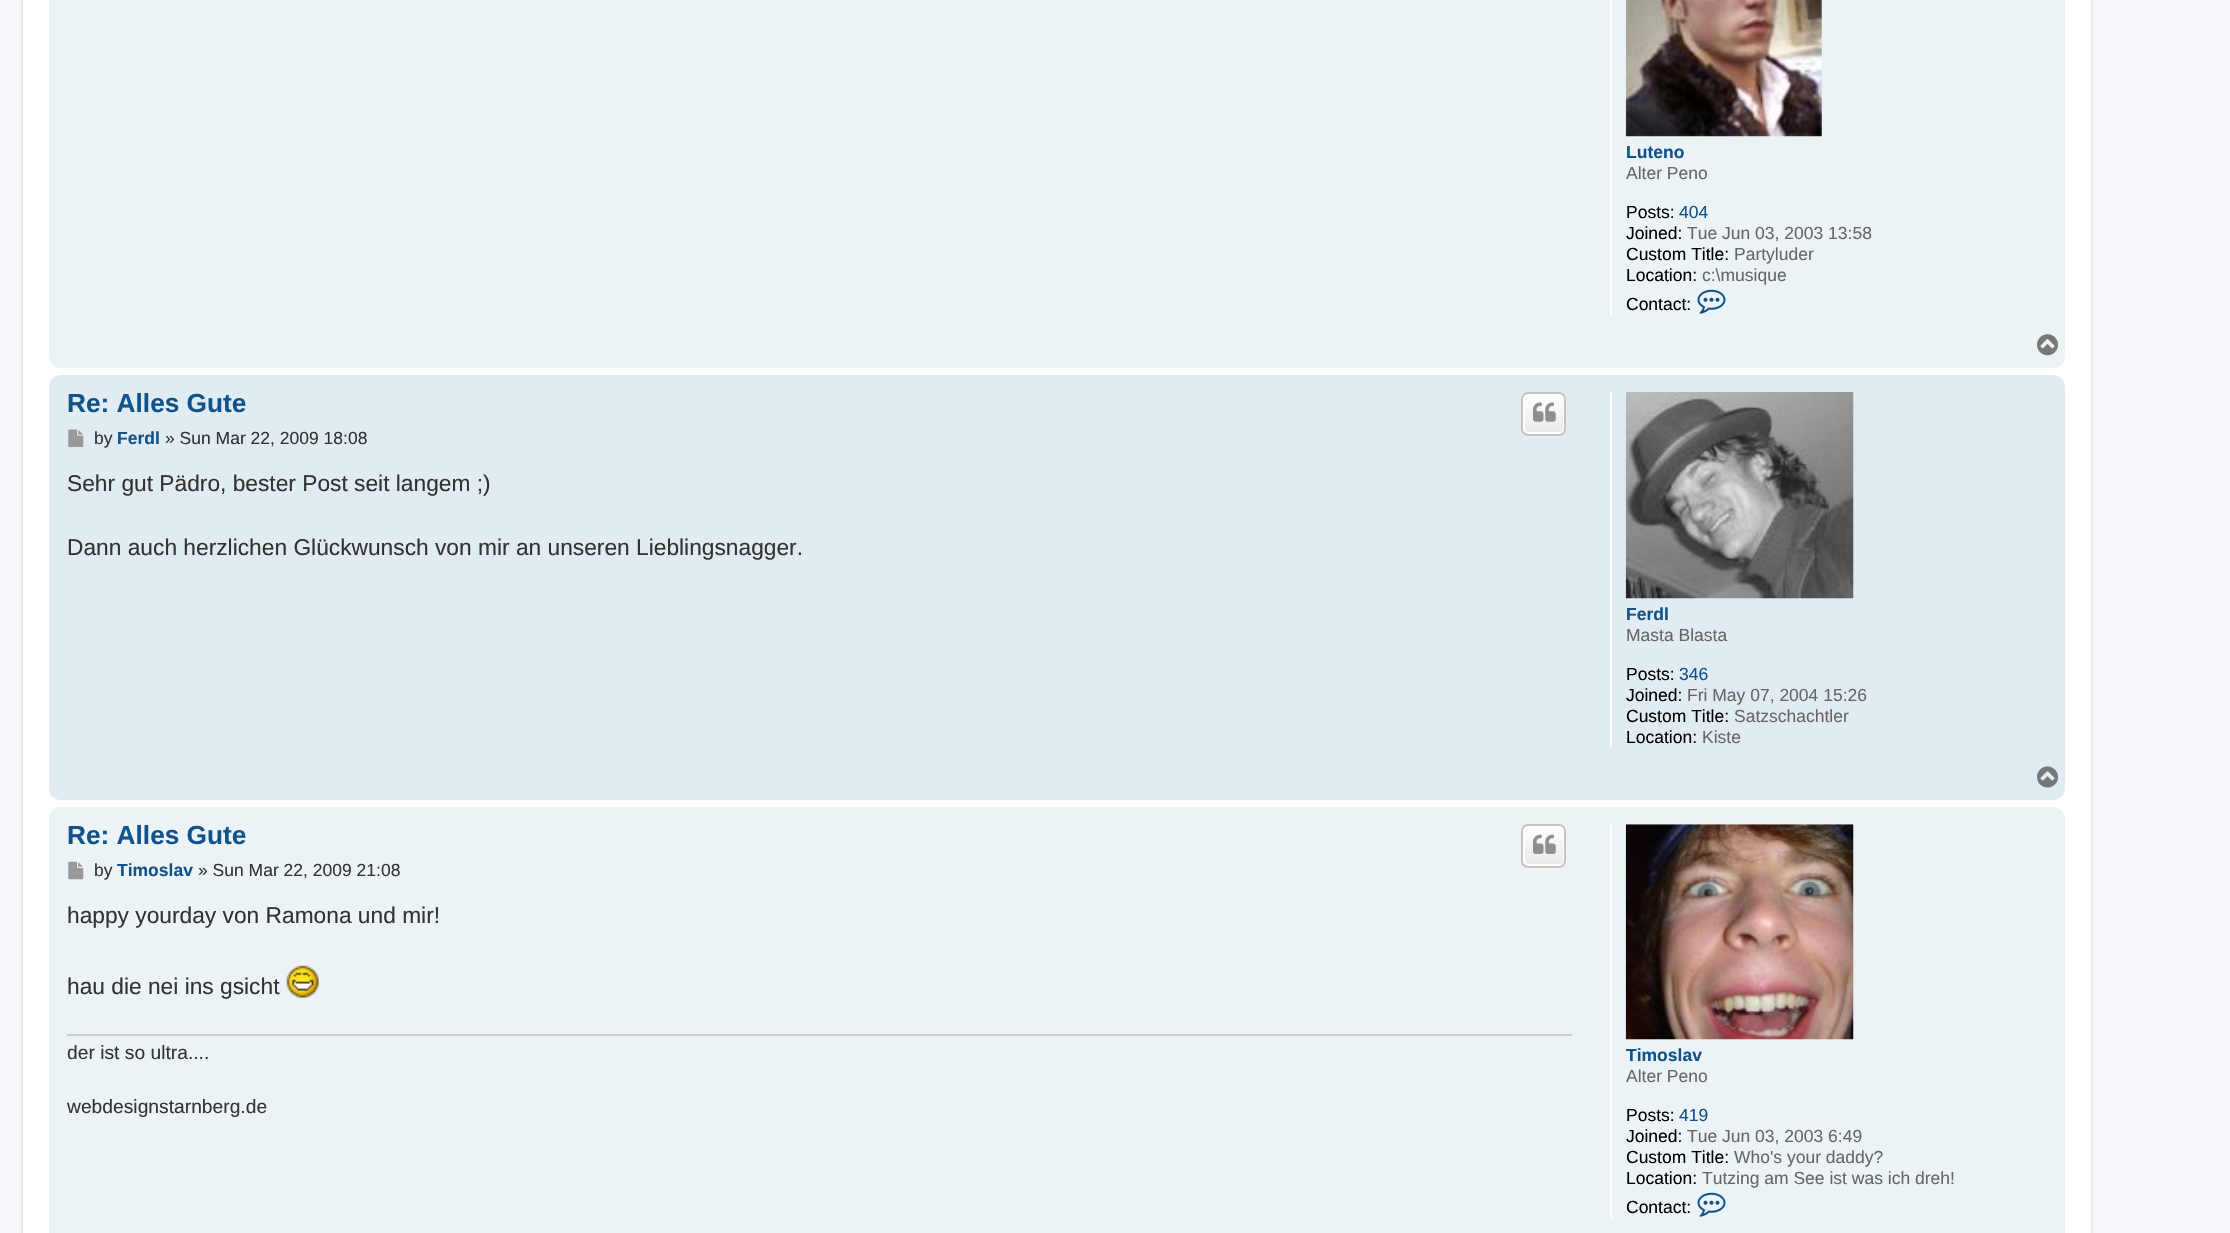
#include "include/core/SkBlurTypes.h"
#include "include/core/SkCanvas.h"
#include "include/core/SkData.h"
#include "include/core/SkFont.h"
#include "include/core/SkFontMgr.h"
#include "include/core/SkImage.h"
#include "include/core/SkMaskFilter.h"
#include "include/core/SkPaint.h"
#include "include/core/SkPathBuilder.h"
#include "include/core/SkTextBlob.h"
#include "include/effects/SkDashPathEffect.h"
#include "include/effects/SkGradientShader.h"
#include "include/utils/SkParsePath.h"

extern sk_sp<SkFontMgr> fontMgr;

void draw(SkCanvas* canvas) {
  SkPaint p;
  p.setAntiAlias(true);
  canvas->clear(SkColorSetRGB(245, 247, 250));
  p.setColor(SK_ColorWHITE);
  canvas->drawRect(SkRect::MakeLTRB(22, -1, 2092, 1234), p);
  p.setStyle(SkPaint::kStroke_Style);
  p.setStrokeWidth(2);
  p.setColor(SkColorSetRGB(230, 233, 237));
  canvas->drawRect(SkRect::MakeLTRB(22, -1, 2092, 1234), p);
  p.setStyle(SkPaint::kFill_Style);
  p.setColor(SkColorSetRGB(236, 243, 247));
  canvas->drawRoundRect(SkRect::MakeLTRB(49, -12, 2065, 368), 12, 12, p);
  p.setColor(SK_ColorWHITE);
  canvas->drawRect(SkRect::MakeLTRB(1610, 0, 1612, 315), p);
  canvas->drawImageRect(SkImages::DeferredFromEncodedData(SkData::MakeFromFileName("images/1.png")), SkRect::MakeLTRB(1625, 0, 1822, 137), SkSamplingOptions());
  canvas->drawImageRect(SkImages::DeferredFromEncodedData(SkData::MakeFromFileName("images/2.png")), SkRect::MakeLTRB(1697, 289, 1726, 314), SkSamplingOptions());
  canvas->drawImageRect(SkImages::DeferredFromEncodedData(SkData::MakeFromFileName("images/3.png")), SkRect::MakeLTRB(2037, 334, 2058, 356), SkSamplingOptions());
  p.setColor(SkColorSetRGB(225, 235, 242));
  canvas->drawRoundRect(SkRect::MakeLTRB(49, 375, 2065, 800), 12, 12, p);
  canvas->save();
  canvas->clipPath(SkPathBuilder().moveTo(1528, 392).lineTo(1559, 392).cubicTo(1563, 392, 1566, 395, 1566, 399).lineTo(1566, 429).cubicTo(1566, 433, 1563, 436, 1559, 436).lineTo(1528, 436).cubicTo(1524, 436, 1521, 433, 1521, 429).lineTo(1521, 399).cubicTo(1521, 395, 1524, 392, 1528, 392).close().detach(), true);
  {
    const SkColor colors[] = {SK_ColorWHITE, SkColorSetRGB(233, 233, 233)};
    const float stops[] = {0, 1};
    const SkPoint ends[] = {{1544, 394}, {1544, 434}};
    p.setShader(SkGradientShader::MakeLinear(ends, colors, stops, 2, SkTileMode::kClamp));
    p.setAlpha(255);
  }
  canvas->drawRect(SkRect::MakeLTRB(1521, 394, 1566, 434), p);
  canvas->restore();
  p.setStyle(SkPaint::kStroke_Style);
  p.setShader(nullptr);
  p.setColor(SK_ColorWHITE);
  canvas->drawRoundRect(SkRect::MakeLTRB(1524, 395, 1564, 433), 4, 4, p);
  p.setColor(SkColorSetRGB(199, 195, 191));
  canvas->drawRoundRect(SkRect::MakeLTRB(1522, 393, 1565, 435), 6, 6, p);
  canvas->drawImageRect(SkImages::DeferredFromEncodedData(SkData::MakeFromFileName("images/4.png")), SkRect::MakeLTRB(1533, 402, 1556, 422), SkSamplingOptions());
  canvas->drawImageRect(SkImages::DeferredFromEncodedData(SkData::MakeFromFileName("images/5.png")), SkRect::MakeLTRB(68, 429, 84, 447), SkSamplingOptions());
  p.setStyle(SkPaint::kFill_Style);
  p.setColor(SK_ColorWHITE);
  canvas->drawRect(SkRect::MakeLTRB(1610, 392, 1612, 747), p);
  canvas->drawImageRect(SkImages::DeferredFromEncodedData(SkData::MakeFromFileName("images/6.png")), SkRect::MakeLTRB(1625, 392, 1854, 599), SkSamplingOptions());
  canvas->drawImageRect(SkImages::DeferredFromEncodedData(SkData::MakeFromFileName("images/7.png")), SkRect::MakeLTRB(2037, 766, 2058, 788), SkSamplingOptions());
  p.setColor(SkColorSetRGB(236, 243, 247));
  canvas->drawRoundRect(SkRect::MakeLTRB(49, 807, 2065, 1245), 12, 12, p);
  canvas->save();
  canvas->clipPath(SkPathBuilder().moveTo(1528, 824).lineTo(1559, 824).cubicTo(1563, 824, 1566, 827, 1566, 831).lineTo(1566, 861).cubicTo(1566, 865, 1563, 868, 1559, 868).lineTo(1528, 868).cubicTo(1524, 868, 1521, 865, 1521, 861).lineTo(1521, 831).cubicTo(1521, 827, 1524, 824, 1528, 824).close().detach(), true);
  {
    const SkColor colors[] = {SK_ColorWHITE, SkColorSetRGB(233, 233, 233)};
    const float stops[] = {0, 1};
    const SkPoint ends[] = {{1544, 826}, {1544, 866}};
    p.setShader(SkGradientShader::MakeLinear(ends, colors, stops, 2, SkTileMode::kClamp));
    p.setAlpha(255);
  }
  canvas->drawRect(SkRect::MakeLTRB(1521, 826, 1566, 866), p);
  canvas->restore();
  p.setStyle(SkPaint::kStroke_Style);
  p.setShader(nullptr);
  p.setColor(SK_ColorWHITE);
  canvas->drawRoundRect(SkRect::MakeLTRB(1524, 827, 1564, 865), 4, 4, p);
  p.setColor(SkColorSetRGB(199, 195, 191));
  canvas->drawRoundRect(SkRect::MakeLTRB(1522, 825, 1565, 867), 6, 6, p);
  canvas->drawImageRect(SkImages::DeferredFromEncodedData(SkData::MakeFromFileName("images/8.png")), SkRect::MakeLTRB(1533, 834, 1556, 854), SkSamplingOptions());
  canvas->drawImageRect(SkImages::DeferredFromEncodedData(SkData::MakeFromFileName("images/9.png")), SkRect::MakeLTRB(68, 861, 84, 880), SkSamplingOptions());
  canvas->drawImageRect(SkImages::DeferredFromEncodedData(SkData::MakeFromFileName("images/10.png")), SkRect::MakeLTRB(286, 965, 319, 998), SkSamplingOptions());
  p.setStyle(SkPaint::kFill_Style);
  p.setColor(SkColorSetRGB(204, 204, 204));
  canvas->drawRect(SkRect::MakeLTRB(67, 1034, 1572, 1036), p);
  p.setColor(SK_ColorWHITE);
  canvas->drawRect(SkRect::MakeLTRB(1610, 824, 1612, 1218), p);
  canvas->drawImageRect(SkImages::DeferredFromEncodedData(SkData::MakeFromFileName("images/11.png")), SkRect::MakeLTRB(1625, 824, 1854, 1040), SkSamplingOptions());
  canvas->drawImageRect(SkImages::DeferredFromEncodedData(SkData::MakeFromFileName("images/2.png")), SkRect::MakeLTRB(1697, 1192, 1726, 1217), SkSamplingOptions());
  SkFont font1(fontMgr->matchFamilyStyle("Liberation Sans", SkFontStyle::Bold()), 17.5f);
  font1.setSubpixel(true);
  p.setColor(SkColorSetRGB(16, 82, 137));
  canvas->drawString("Luteno", 1626, 158, font1, p);
  SkFont font2(fontMgr->matchFamilyStyle("Liberation Sans", SkFontStyle::Normal()), 17.5f);
  font2.setSubpixel(true);
  p.setColor(SkColorSetRGB(102, 102, 102));
  canvas->drawString("Alter Peno", 1626, 179, font2, p);
  p.setColor(SK_ColorBLACK);
  canvas->drawString("Posts:", 1626, 218, font2, p);
  p.setColor(SkColorSetRGB(16, 82, 137));
  canvas->drawString("404", 1679, 218, font2, p);
  p.setColor(SK_ColorBLACK);
  canvas->drawString("Joined:", 1626, 239, font2, p);
  p.setColor(SkColorSetRGB(102, 102, 102));
  canvas->drawString("Tue Jun 03, 2003 13:58", 1687, 239, font2, p);
  p.setColor(SK_ColorBLACK);
  canvas->drawString("Custom Title:", 1626, 260, font2, p);
  p.setColor(SkColorSetRGB(102, 102, 102));
  canvas->drawString("Partyluder", 1734, 260, font2, p);
  p.setColor(SK_ColorBLACK);
  canvas->drawString("Location:", 1626, 281, font2, p);
  p.setColor(SkColorSetRGB(102, 102, 102));
  canvas->drawString("c:\\musique", 1702, 281, font2, p);
  p.setColor(SK_ColorBLACK);
  canvas->drawString("Contact:", 1626, 310, font2, p);
  SkFont font3(fontMgr->matchFamilyStyle("Liberation Sans", SkFontStyle::Bold()), 26.25f);
  font3.setSubpixel(true);
  p.setColor(SkColorSetRGB(16, 82, 137));
  canvas->drawString("Re: Alles Gute", 67, 412, font3, p);
  p.setColor(SkColorSetRGB(51, 51, 51));
  canvas->drawString("by", 94, 444, font2, p);
  p.setColor(SkColorSetRGB(16, 82, 137));
  canvas->drawString("Ferdl", 117, 444, font1, p);
  p.setColor(SkColorSetRGB(51, 51, 51));
  canvas->drawString("» Sun Mar 22, 2009 18:08", 165, 444, font2, p);
  SkFont font4(fontMgr->matchFamilyStyle("Liberation Sans", SkFontStyle::Normal()), 22.75f);
  font4.setSubpixel(true);
  canvas->drawString("Sehr gut Pädro, bester Post seit langem ;)", 67, 491, font4, p);
  canvas->drawString("Dann auch herzlichen Glückwunsch von mir an unseren Lieblingsnagger.", 67, 555, font4, p);
  p.setColor(SkColorSetRGB(16, 82, 137));
  canvas->drawString("Ferdl", 1626, 620, font1, p);
  p.setColor(SkColorSetRGB(102, 102, 102));
  canvas->drawString("Masta Blasta", 1626, 641, font2, p);
  p.setColor(SK_ColorBLACK);
  canvas->drawString("Posts:", 1626, 680, font2, p);
  p.setColor(SkColorSetRGB(16, 82, 137));
  canvas->drawString("346", 1679, 680, font2, p);
  p.setColor(SK_ColorBLACK);
  canvas->drawString("Joined:", 1626, 701, font2, p);
  p.setColor(SkColorSetRGB(102, 102, 102));
  canvas->drawString("Fri May 07, 2004 15:26", 1687, 701, font2, p);
  p.setColor(SK_ColorBLACK);
  canvas->drawString("Custom Title:", 1626, 722, font2, p);
  p.setColor(SkColorSetRGB(102, 102, 102));
  canvas->drawString("Satzschachtler", 1734, 722, font2, p);
  p.setColor(SK_ColorBLACK);
  canvas->drawString("Location:", 1626, 743, font2, p);
  p.setColor(SkColorSetRGB(102, 102, 102));
  canvas->drawString("Kiste", 1702, 743, font2, p);
  p.setColor(SkColorSetRGB(16, 82, 137));
  canvas->drawString("Re: Alles Gute", 67, 844, font3, p);
  p.setColor(SkColorSetRGB(51, 51, 51));
  canvas->drawString("by", 94, 876, font2, p);
  p.setColor(SkColorSetRGB(16, 82, 137));
  canvas->drawString("Timoslav", 117, 876, font1, p);
  p.setColor(SkColorSetRGB(51, 51, 51));
  canvas->drawString("» Sun Mar 22, 2009 21:08", 198, 876, font2, p);
  canvas->drawString("happy yourday von Ramona und mir!", 67, 923, font4, p);
  canvas->drawString("hau die nei ins gsicht", 67, 994, font4, p);
  SkFont font5(fontMgr->matchFamilyStyle("Liberation Sans", SkFontStyle::Normal()), 19.25f);
  font5.setSubpixel(true);
  canvas->drawString("der ist so ultra....", 67, 1059, font5, p);
  canvas->save();
  canvas->clipRect(SkRect::MakeLTRB(67, 1036, 1572, 1120));
  canvas->drawString("webdesignstarnberg.de", 67, 1113, font5, p);
  canvas->restore();
  p.setColor(SkColorSetRGB(16, 82, 137));
  canvas->drawString("Timoslav", 1626, 1061, font1, p);
  p.setColor(SkColorSetRGB(102, 102, 102));
  canvas->drawString("Alter Peno", 1626, 1082, font2, p);
  p.setColor(SK_ColorBLACK);
  canvas->drawString("Posts:", 1626, 1121, font2, p);
  p.setColor(SkColorSetRGB(16, 82, 137));
  canvas->drawString("419", 1679, 1121, font2, p);
  p.setColor(SK_ColorBLACK);
  canvas->drawString("Joined:", 1626, 1142, font2, p);
  p.setColor(SkColorSetRGB(102, 102, 102));
  canvas->drawString("Tue Jun 03, 2003 6:49", 1687, 1142, font2, p);
  p.setColor(SK_ColorBLACK);
  canvas->drawString("Custom Title:", 1626, 1163, font2, p);
  p.setColor(SkColorSetRGB(102, 102, 102));
  canvas->drawString("Who's your daddy?", 1734, 1163, font2, p);
  p.setColor(SK_ColorBLACK);
  canvas->drawString("Location:", 1626, 1184, font2, p);
  p.setColor(SkColorSetRGB(102, 102, 102));
  canvas->drawString("Tutzing am See ist was ich dreh!", 1702, 1184, font2, p);
  p.setColor(SK_ColorBLACK);
  canvas->drawString("Contact:", 1626, 1213, font2, p);
}
